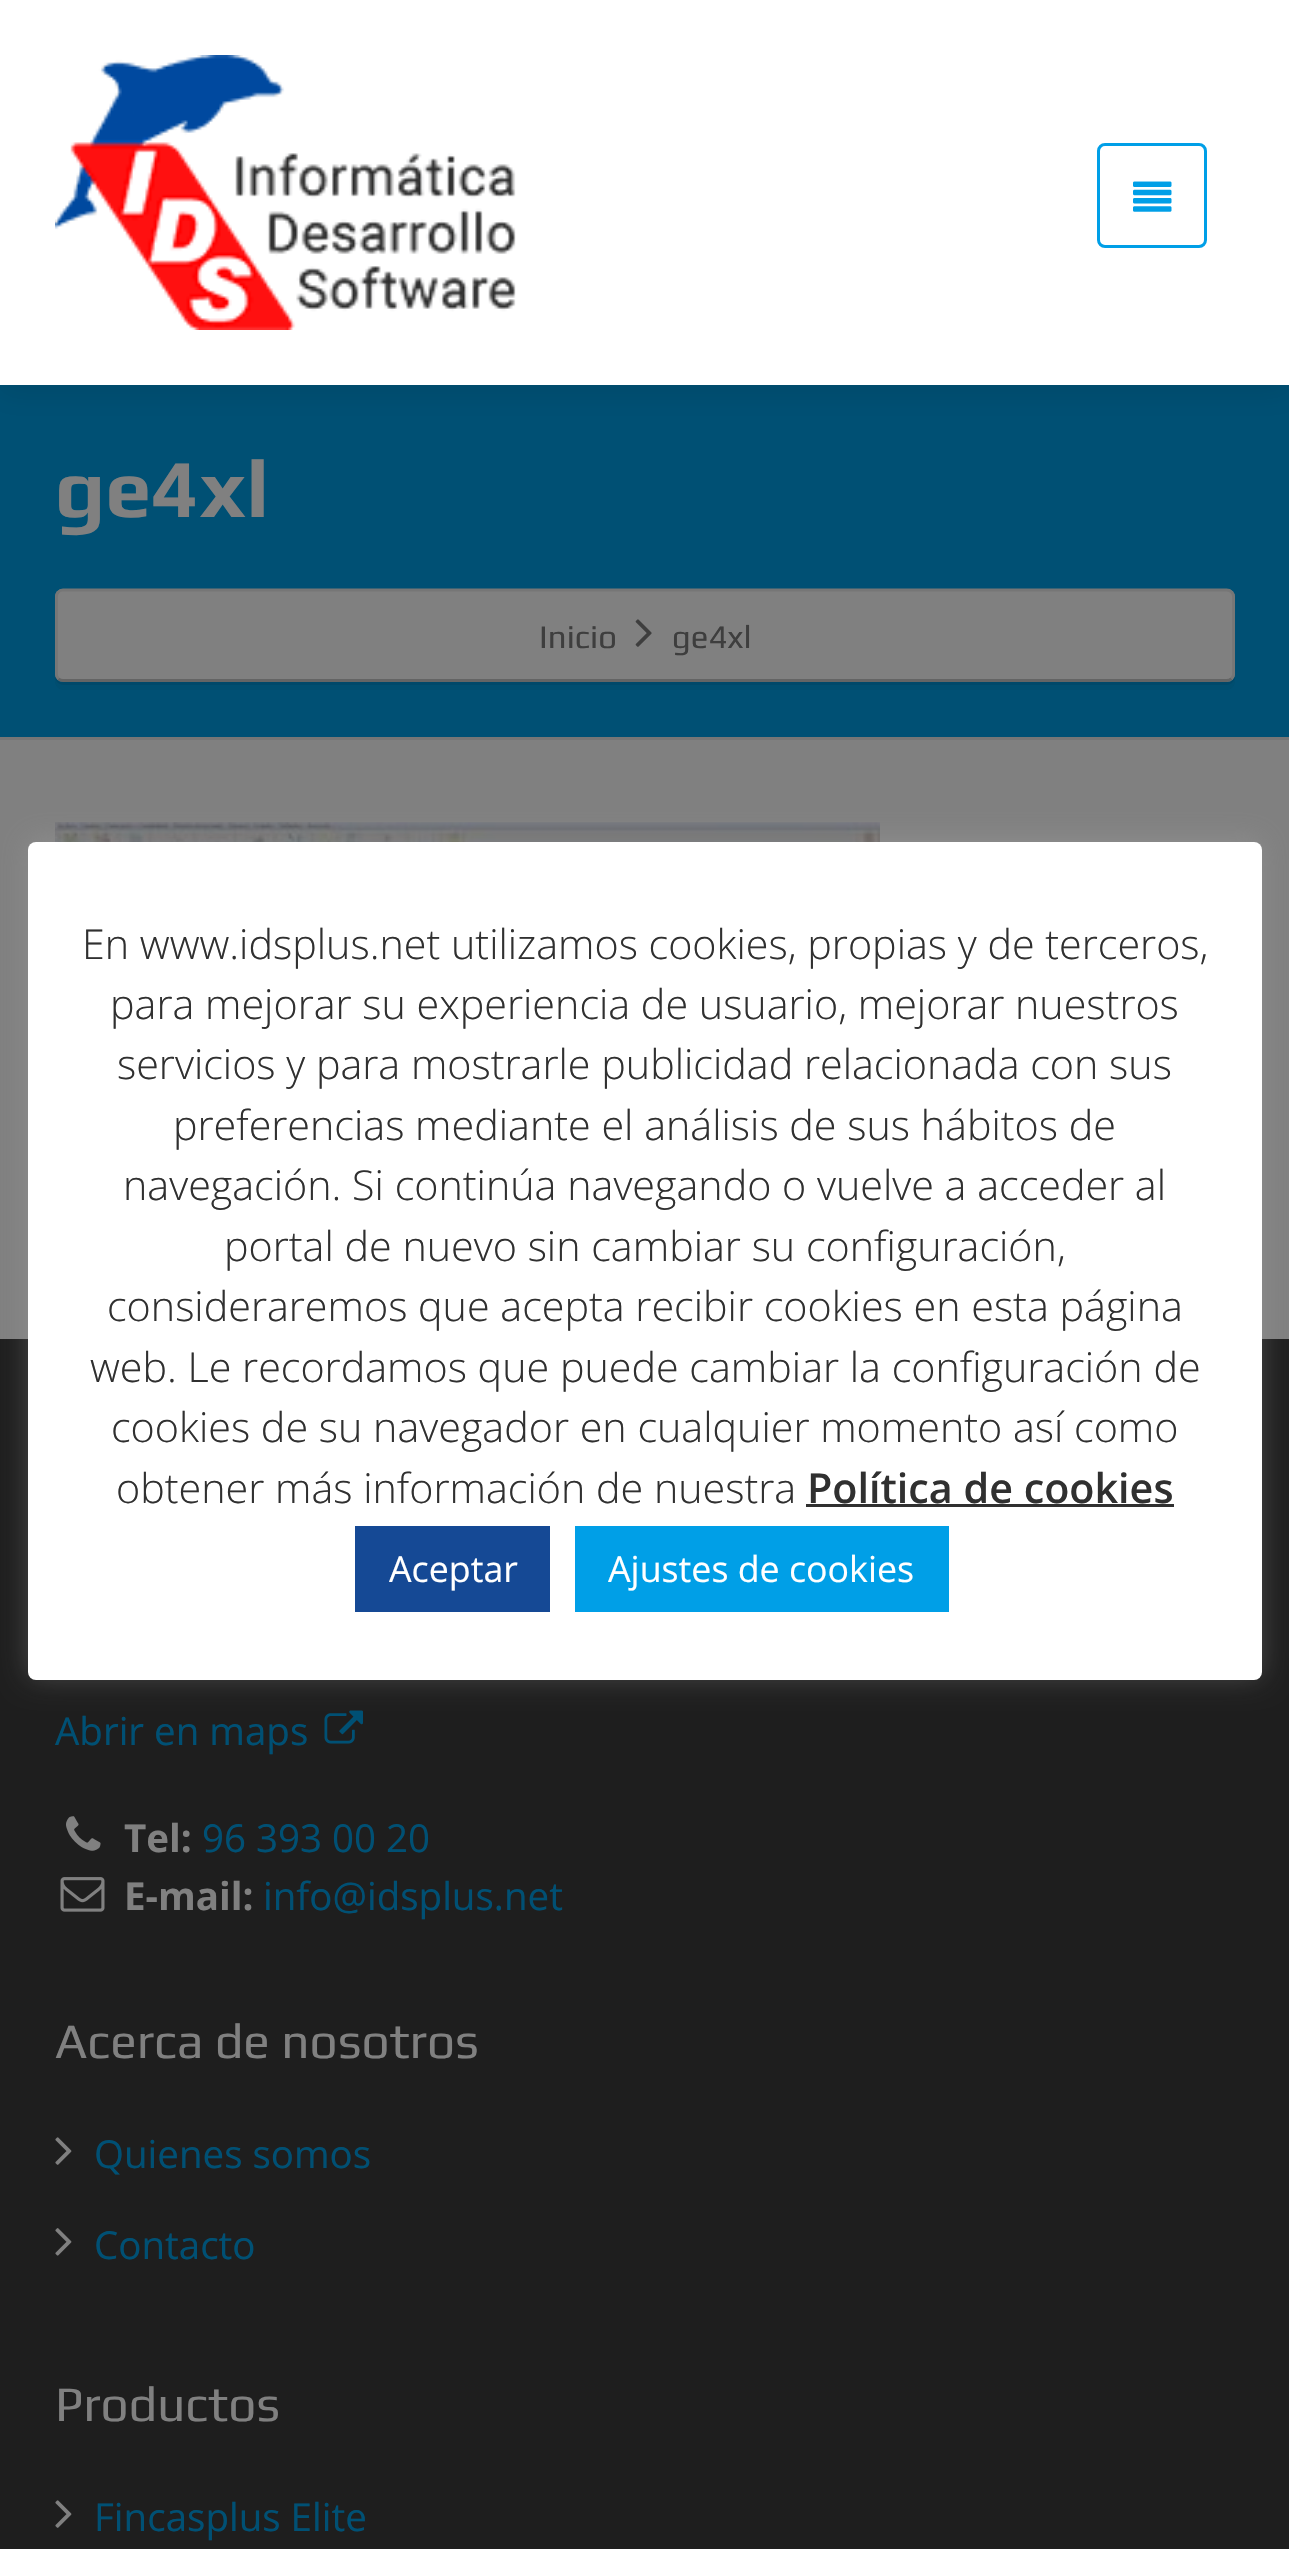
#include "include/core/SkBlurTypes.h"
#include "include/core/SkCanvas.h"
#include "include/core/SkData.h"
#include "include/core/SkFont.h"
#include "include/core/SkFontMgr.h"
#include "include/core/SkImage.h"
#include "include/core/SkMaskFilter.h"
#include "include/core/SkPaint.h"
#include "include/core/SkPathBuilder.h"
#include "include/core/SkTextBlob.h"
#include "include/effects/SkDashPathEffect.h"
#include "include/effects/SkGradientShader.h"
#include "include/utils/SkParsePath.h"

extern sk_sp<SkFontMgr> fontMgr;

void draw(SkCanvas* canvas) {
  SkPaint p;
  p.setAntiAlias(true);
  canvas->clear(SkColorSetRGB(128, 128, 128));
  p.setColor(SkColorSetRGB(0, 80, 116));
  canvas->drawRect(SkRect::MakeLTRB(0, 385, 1289, 737), p);
  p.setColor(SkColorSetARGB(26, 0, 0, 0));
  p.setMaskFilter(SkMaskFilter::MakeBlur(kNormal_SkBlurStyle, 14));
  canvas->drawRect(SkRect::MakeLTRB(0, 6, 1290, 391), p);
  p.setMaskFilter(nullptr);
  p.setColor(SK_ColorWHITE);
  canvas->drawRect(SkRect::MakeLTRB(0, 0, 1289, 385), p);
  canvas->drawImageRect(SkImages::DeferredFromEncodedData(SkData::MakeFromFileName("images/1.png")), SkRect::MakeLTRB(55, 55, 516, 330), SkSamplingOptions());
  p.setStyle(SkPaint::kStroke_Style);
  p.setStrokeWidth(3);
  p.setColor(SkColorSetRGB(0, 159, 231));
  canvas->drawRoundRect(SkRect::MakeLTRB(1098.5f, 144.5f, 1205.5f, 246.5f), 6.5f, 6.5f, p);
  canvas->drawImageRect(SkImages::DeferredFromEncodedData(SkData::MakeFromFileName("images/2.png")), SkRect::MakeLTRB(1133, 181, 1172, 212), SkSamplingOptions());
  p.setStyle(SkPaint::kFill_Style);
  p.setColor(SkColorSetRGB(118, 118, 118));
  canvas->drawRect(SkRect::MakeLTRB(0, 737, 1289, 740), p);
  p.setColor(SkColorSetRGB(0, 74, 108));
  canvas->drawPath(SkPathBuilder().moveTo(55, 674).lineTo(55, 677).cubicTo(55, 681, 59, 685, 63, 685).lineTo(1227, 685).cubicTo(1231, 685, 1235, 681, 1235, 677).lineTo(1235, 597).lineTo(1235, 674).cubicTo(1235, 678, 1231, 682, 1226, 682).lineTo(63, 682).cubicTo(59, 682, 55, 678, 55, 674).close().detach(), p);
  p.setColor(SkColorSetARGB(8, 0, 0, 0));
  canvas->drawPath(SkPathBuilder().moveTo(55, 674).lineTo(55, 682).cubicTo(55, 686, 59, 690, 63, 690).lineTo(1227, 690).cubicTo(1231, 690, 1235, 686, 1235, 682).lineTo(1235, 603).lineTo(1235, 674).cubicTo(1235, 678, 1231, 682, 1226, 682).lineTo(63, 682).cubicTo(59, 682, 55, 678, 55, 674).close().detach(), p);
  p.setColor(SkColorSetRGB(128, 128, 128));
  canvas->drawRoundRect(SkRect::MakeLTRB(55, 589, 1235, 682), 8, 8, p);
  p.setStyle(SkPaint::kStroke_Style);
  p.setStrokeWidth(2.8f);
  p.setColor(SkColorSetARGB(56, 0, 0, 0));
  canvas->drawPath(SkPathBuilder().moveTo(1231.5f, 678.5f).cubicTo(1230, 680, 1228.5f, 680.5f, 1226.5f, 680.5f).lineTo(63, 680.5f).cubicTo(61.5f, 680.5f, 59.5f, 680, 58.5f, 678.5f).detach(), p);
  p.setColor(SkColorSetRGB(118, 118, 118));
  canvas->drawPath(SkPathBuilder().moveTo(58.5f, 678.5f).cubicTo(57, 677.5f, 56.5f, 675.5f, 56.5f, 674).lineTo(56.5f, 597).cubicTo(56.5f, 595, 57, 593, 58.5f, 592).cubicTo(59.5f, 590.5f, 61.5f, 590, 63, 590).lineTo(1226.5f, 590).cubicTo(1228.5f, 590, 1230, 590.5f, 1231.5f, 592).cubicTo(1232.5f, 593, 1233.5f, 595, 1233.5f, 597).lineTo(1233.5f, 674).cubicTo(1233.5f, 675.5f, 1232.5f, 677.5f, 1231.5f, 678.5f).detach(), p);
  canvas->drawImageRect(SkImages::DeferredFromEncodedData(SkData::MakeFromFileName("images/3.png")), SkRect::MakeLTRB(635, 619, 652, 647), SkSamplingOptions());
  canvas->drawImageRect(SkImages::DeferredFromEncodedData(SkData::MakeFromFileName("images/4.png")), SkRect::MakeLTRB(55, 822, 880, 842), SkSamplingOptions());
  p.setStyle(SkPaint::kFill_Style);
  p.setColor(SkColorSetRGB(30, 30, 30));
  canvas->drawRect(SkRect::MakeLTRB(0, 1339, 1289, 2549), p);
  canvas->drawImageRect(SkImages::DeferredFromEncodedData(SkData::MakeFromFileName("images/5.png")), SkRect::MakeLTRB(324, 1710, 363, 1744), SkSamplingOptions());
  canvas->drawImageRect(SkImages::DeferredFromEncodedData(SkData::MakeFromFileName("images/6.png")), SkRect::MakeLTRB(66, 1816, 101, 1851), SkSamplingOptions());
  canvas->drawImageRect(SkImages::DeferredFromEncodedData(SkData::MakeFromFileName("images/7.png")), SkRect::MakeLTRB(60, 1877, 105, 1912), SkSamplingOptions());
  canvas->drawImageRect(SkImages::DeferredFromEncodedData(SkData::MakeFromFileName("images/8.png")), SkRect::MakeLTRB(55, 2137, 72, 2165), SkSamplingOptions());
  canvas->drawImageRect(SkImages::DeferredFromEncodedData(SkData::MakeFromFileName("images/9.png")), SkRect::MakeLTRB(55, 2228, 72, 2256), SkSamplingOptions());
  canvas->drawImageRect(SkImages::DeferredFromEncodedData(SkData::MakeFromFileName("images/8.png")), SkRect::MakeLTRB(55, 2500, 72, 2528), SkSamplingOptions());
  p.setColor(SkColorSetARGB(77, 172, 171, 171));
  p.setMaskFilter(SkMaskFilter::MakeBlur(kNormal_SkBlurStyle, 14));
  canvas->drawRoundRect(SkRect::MakeLTRB(28, 839, 1262, 1678), 8, 8, p);
  p.setMaskFilter(nullptr);
  p.setColor(SK_ColorWHITE);
  canvas->drawRoundRect(SkRect::MakeLTRB(28, 842, 1262, 1680), 8, 8, p);
  p.setColor(SkColorSetRGB(48, 48, 48));
  canvas->drawRect(SkRect::MakeLTRB(806, 1504, 1174, 1507), p);
  p.setColor(SkColorSetRGB(21, 73, 149));
  canvas->drawRect(SkRect::MakeLTRB(355, 1526, 550, 1612), p);
  p.setColor(SkColorSetRGB(0, 159, 231));
  canvas->drawRect(SkRect::MakeLTRB(575, 1526, 949, 1612), p);
  SkFont font1(fontMgr->matchFamilyStyle("Play", SkFontStyle::Bold()), 82.5f);
  font1.setSubpixel(true);
  p.setColor(SkColorSetRGB(128, 128, 128));
  canvas->drawString("ge4xl", 55, 517, font1, p);
  SkFont font2(fontMgr->matchFamilyStyle("Play", SkFontStyle::Normal()), 33);
  font2.setSubpixel(true);
  p.setColor(SkColorSetRGB(62, 62, 62));
  canvas->drawString("Inicio", 539, 648, font2, p);
  canvas->drawString("ge4xl", 672, 648, font2, p);
  SkFont font3(fontMgr->matchFamilyStyle("Open Sans", SkFontStyle::Normal()), 38.5f);
  font3.setSubpixel(true);
  p.setColor(SkColorSetRGB(0, 80, 116));
  canvas->drawString("Abrir en maps", 55, 1745, font3, p);
  SkFont font4(fontMgr->matchFamilyStyle("Open Sans", SkFontStyle::Bold()), 38.5f);
  font4.setSubpixel(true);
  p.setColor(SkColorSetRGB(128, 128, 128));
  canvas->drawString("Tel:", 124, 1852, font4, p);
  p.setColor(SkColorSetRGB(0, 80, 116));
  canvas->drawString("96 393 00 20", 202, 1852, font3, p);
  p.setColor(SkColorSetRGB(128, 128, 128));
  canvas->drawString("E-mail:", 124, 1910, font4, p);
  p.setColor(SkColorSetRGB(0, 80, 116));
  canvas->drawString("info@idsplus.net", 263, 1910, font3, p);
  SkFont font5(fontMgr->matchFamilyStyle("Play", SkFontStyle::Normal()), 49.5f);
  font5.setSubpixel(true);
  p.setColor(SkColorSetRGB(128, 128, 128));
  canvas->drawString("Acerca de nosotros", 55, 2058, font5, p);
  p.setColor(SkColorSetRGB(0, 80, 116));
  canvas->drawString("Quienes somos", 94, 2168, font3, p);
  canvas->drawString("Contacto", 94, 2259, font3, p);
  p.setColor(SkColorSetRGB(128, 128, 128));
  canvas->drawString("Productos", 55, 2421, font5, p);
  p.setColor(SkColorSetRGB(0, 80, 116));
  canvas->drawString("Fincasplus Elite", 94, 2531, font3, p);
  SkFont font6(fontMgr->matchFamilyStyle("Open Sans", SkFontStyle(300, SkFontStyle::kNormal_Width, SkFontStyle::kUpright_Slant)), 41.25f);
  font6.setSubpixel(true);
  p.setColor(SkColorSetRGB(48, 48, 48));
  canvas->drawString("En www.idsplus.net utilizamos cookies, propias y de terceros,", 82, 959, font6, p);
  canvas->drawString("para mejorar su experiencia de usuario, mejorar nuestros", 110, 1019, font6, p);
  canvas->drawString("servicios y para mostrarle publicidad relacionada con sus", 117, 1079, font6, p);
  canvas->drawString("preferencias mediante el análisis de sus hábitos de", 173, 1140, font6, p);
  canvas->drawString("navegación. Si continúa navegando o vuelve a acceder al", 123, 1200, font6, p);
  canvas->drawString("portal de nuevo sin cambiar su configuración,", 224, 1261, font6, p);
  canvas->drawString("consideraremos que acepta recibir cookies en esta página", 107, 1321, font6, p);
  canvas->drawString("web. Le recordamos que puede cambiar la configuración de", 90, 1382, font6, p);
  canvas->drawString("cookies de su navegador en cualquier momento así como", 111, 1442, font6, p);
  canvas->drawString("obtener más información de nuestra", 116, 1503, font6, p);
  SkFont font7(fontMgr->matchFamilyStyle("Open Sans", SkFontStyle(600, SkFontStyle::kNormal_Width, SkFontStyle::kUpright_Slant)), 41.25f);
  font7.setSubpixel(true);
  canvas->drawString("Política de cookies", 807, 1503, font7, p);
  SkFont font8(fontMgr->matchFamilyStyle("Open Sans", SkFontStyle::Normal()), 35.75f);
  font8.setSubpixel(true);
  p.setColor(SK_ColorWHITE);
  canvas->drawString("Aceptar", 389, 1582, font8, p);
  canvas->drawString("Ajustes de cookies", 608, 1582, font8, p);
}
